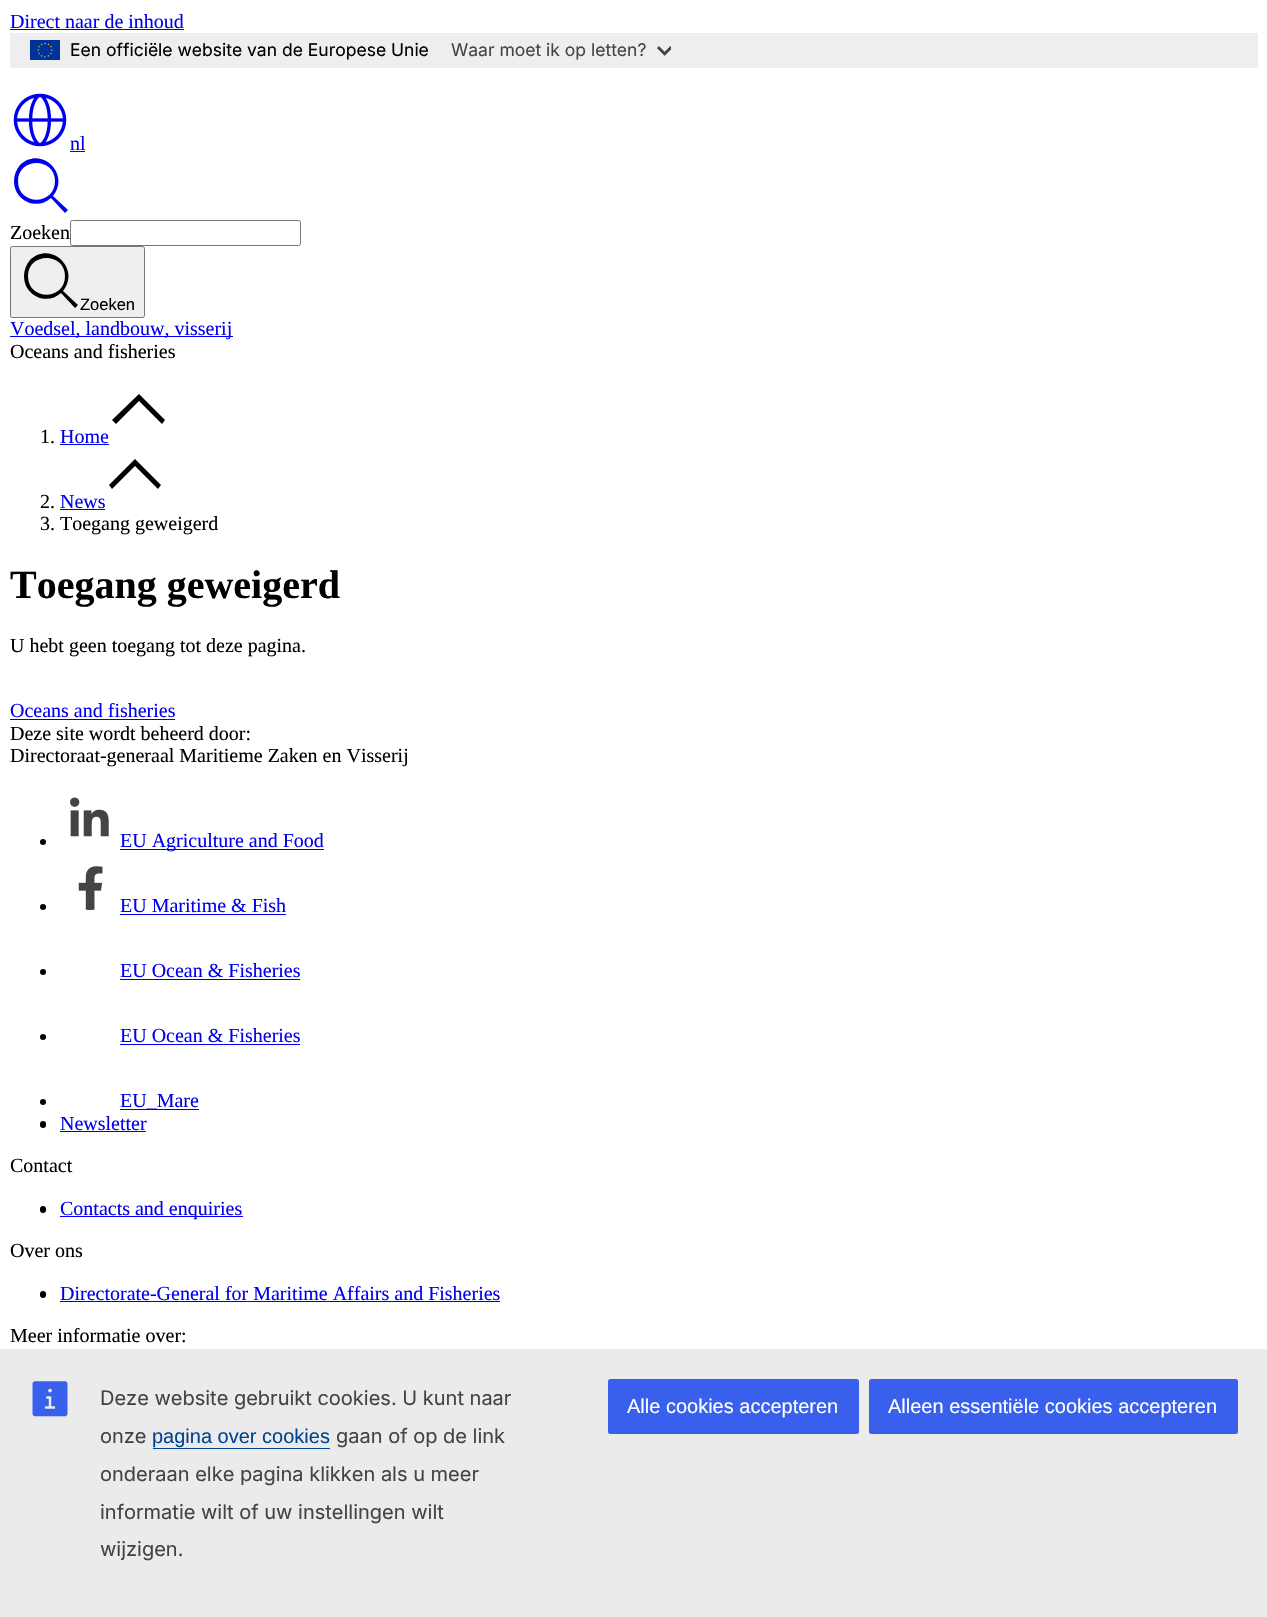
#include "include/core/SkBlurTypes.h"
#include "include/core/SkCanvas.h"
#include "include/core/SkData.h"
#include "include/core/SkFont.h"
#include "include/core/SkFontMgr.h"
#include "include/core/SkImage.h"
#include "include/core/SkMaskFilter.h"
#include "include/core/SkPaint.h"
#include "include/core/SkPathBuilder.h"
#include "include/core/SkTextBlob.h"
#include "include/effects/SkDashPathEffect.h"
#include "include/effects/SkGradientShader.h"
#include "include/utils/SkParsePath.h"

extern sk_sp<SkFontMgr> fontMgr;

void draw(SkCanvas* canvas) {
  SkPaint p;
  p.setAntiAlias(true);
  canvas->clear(SK_ColorWHITE);
  p.setColor(SkColorSetRGB(0, 0, 238));
  canvas->drawRect(SkRect::MakeLTRB(10, 29, 184, 30), p);
  p.setColor(SkColorSetRGB(238, 238, 238));
  canvas->drawRect(SkRect::MakeLTRB(10, 33, 1258, 68), p);
  canvas->drawImageRect(SkImages::DeferredFromEncodedData(SkData::MakeFromFileName("images/1.png")), SkRect::MakeLTRB(30, 40, 60, 60), SkSamplingOptions());
  canvas->drawImageRect(SkImages::DeferredFromEncodedData(SkData::MakeFromFileName("images/2.png")), SkRect::MakeLTRB(657, 46, 671, 56), SkSamplingOptions());
  canvas->drawImageRect(SkImages::DeferredFromEncodedData(SkData::MakeFromFileName("images/3.png")), SkRect::MakeLTRB(13, 93, 67, 147), SkSamplingOptions());
  p.setColor(SkColorSetRGB(0, 0, 238));
  canvas->drawRect(SkRect::MakeLTRB(70, 151, 85, 152), p);
  canvas->drawPath(SkPathBuilder(SkPathFillType::kEvenOdd).moveTo(14, 181).cubicTo(14, 175, 16, 170, 20, 165).cubicTo(41, 145, 71, 174, 53, 196).lineTo(68, 210).lineTo(65, 213).lineTo(51, 198).cubicTo(37, 211, 14, 201, 14, 181).moveTo(55, 181).cubicTo(55, 157, 18, 157, 18, 181).cubicTo(18, 206, 55, 206, 55, 181).detach(), p);
  p.setStyle(SkPaint::kStroke_Style);
  p.setStrokeWidth(1);
  p.setColor(SkColorSetRGB(118, 118, 118));
  canvas->drawRoundRect(SkRect::MakeLTRB(70.5f, 220.5f, 300.5f, 245.5f), 2, 2, p);
  p.setStyle(SkPaint::kFill_Style);
  p.setColor(SkColorSetRGB(239, 239, 239));
  canvas->drawRoundRect(SkRect::MakeLTRB(10.5f, 246.5f, 144.5f, 317.5f), 2, 2, p);
  p.setStyle(SkPaint::kStroke_Style);
  p.setColor(SkColorSetRGB(118, 118, 118));
  canvas->drawRoundRect(SkRect::MakeLTRB(10.5f, 246.5f, 144.5f, 317.5f), 2, 2, p);
  p.setStyle(SkPaint::kFill_Style);
  p.setColor(SK_ColorBLACK);
  canvas->drawPath(SkPathBuilder(SkPathFillType::kEvenOdd).moveTo(24, 276).cubicTo(24, 270, 26, 265, 30, 260).cubicTo(51, 240, 81, 269, 63, 291).lineTo(78, 305).lineTo(75, 308).lineTo(61, 293).cubicTo(47, 306, 24, 296, 24, 276).moveTo(65, 276).cubicTo(65, 252, 28, 252, 28, 276).cubicTo(28, 301, 65, 301, 65, 276).detach(), p);
  p.setColor(SkColorSetRGB(0, 0, 238));
  canvas->drawRect(SkRect::MakeLTRB(10, 336, 233, 337), p);
  p.setColor(SK_ColorBLACK);
  canvas->drawPath(SkPathBuilder().moveTo(165, 420).lineTo(162, 424).lineTo(139, 401).lineTo(116, 424).lineTo(112, 420).lineTo(139, 394).close().detach(), p);
  p.setColor(SkColorSetRGB(0, 0, 238));
  canvas->drawRect(SkRect::MakeLTRB(60, 444, 109, 445), p);
  p.setColor(SK_ColorBLACK);
  canvas->drawPath(SkPathBuilder().moveTo(161, 485).lineTo(158, 489).lineTo(135, 466).lineTo(112, 489).lineTo(109, 485).lineTo(135, 459).close().detach(), p);
  p.setColor(SkColorSetRGB(0, 0, 238));
  canvas->drawRect(SkRect::MakeLTRB(60, 509, 105, 510), p);
  canvas->drawRect(SkRect::MakeLTRB(10, 719, 175, 720), p);
  p.setColor(SK_ColorBLACK);
  canvas->drawCircle(43, 842, 3, p);
  canvas->drawImageRect(SkImages::DeferredFromEncodedData(SkData::MakeFromFileName("images/4.png")), SkRect::MakeLTRB(70, 797, 109, 837), SkSamplingOptions());
  p.setColor(SkColorSetRGB(0, 0, 238));
  canvas->drawRect(SkRect::MakeLTRB(120, 849, 324, 850), p);
  p.setColor(SK_ColorBLACK);
  canvas->drawCircle(43, 907, 3, p);
  canvas->drawImageRect(SkImages::DeferredFromEncodedData(SkData::MakeFromFileName("images/5.png")), SkRect::MakeLTRB(78, 866, 103, 910), SkSamplingOptions());
  p.setColor(SkColorSetRGB(0, 0, 238));
  canvas->drawRect(SkRect::MakeLTRB(120, 914, 286, 915), p);
  p.setColor(SK_ColorBLACK);
  canvas->drawCircle(43, 972, 3, p);
  p.setColor(SkColorSetRGB(0, 0, 238));
  canvas->drawRect(SkRect::MakeLTRB(120, 979, 300, 980), p);
  p.setColor(SK_ColorBLACK);
  canvas->drawCircle(43, 1037, 3, p);
  p.setColor(SkColorSetRGB(0, 0, 238));
  canvas->drawRect(SkRect::MakeLTRB(120, 1044, 300, 1045), p);
  p.setColor(SK_ColorBLACK);
  canvas->drawCircle(43, 1102, 3, p);
  p.setColor(SkColorSetRGB(0, 0, 238));
  canvas->drawRect(SkRect::MakeLTRB(120, 1109, 199, 1110), p);
  p.setColor(SK_ColorBLACK);
  canvas->drawRoundRect(SkRect::MakeLTRB(40, 1121, 46, 1128), 3, 3, p);
  p.setColor(SkColorSetRGB(0, 0, 238));
  canvas->drawRect(SkRect::MakeLTRB(60, 1131, 146, 1132), p);
  p.setColor(SK_ColorBLACK);
  canvas->drawRoundRect(SkRect::MakeLTRB(40, 1206, 46, 1213), 3, 3, p);
  p.setColor(SkColorSetRGB(0, 0, 238));
  canvas->drawRect(SkRect::MakeLTRB(60, 1216, 243, 1217), p);
  p.setColor(SK_ColorBLACK);
  canvas->drawRoundRect(SkRect::MakeLTRB(40, 1291, 46, 1298), 3, 3, p);
  p.setColor(SkColorSetRGB(0, 0, 238));
  canvas->drawRect(SkRect::MakeLTRB(60, 1301, 500, 1302), p);
  p.setColor(SkColorSetRGB(235, 235, 235));
  canvas->drawRect(SkRect::MakeLTRB(0, 1349, 1267, 1617), p);
  canvas->drawImageRect(SkImages::DeferredFromEncodedData(SkData::MakeFromFileName("images/6.png")), SkRect::MakeLTRB(32, 1381, 68, 1417), SkSamplingOptions());
  p.setColor(SkColorSetRGB(0, 68, 148));
  canvas->drawRect(SkRect::MakeLTRB(153, 1448, 330, 1449), p);
  p.setColor(SkColorSetRGB(56, 96, 237));
  canvas->drawRoundRect(SkRect::MakeLTRB(608, 1379, 859, 1434), 2.5f, 2.5f, p);
  canvas->drawRoundRect(SkRect::MakeLTRB(869, 1379, 1238, 1434), 2.5f, 2.5f, p);
  SkFont font1(fontMgr->matchFamilyStyle("Liberation Serif", SkFontStyle::Normal()), 20);
  font1.setSubpixel(true);
  p.setColor(SkColorSetRGB(0, 0, 238));
  canvas->drawString("Direct naar de inhoud", 10, 28, font1, p);
  SkFont font2(fontMgr->matchFamilyStyle("Inter", SkFontStyle::Normal()), 17.5f);
  font2.setSubpixel(true);
  p.setColor(SK_ColorBLACK);
  canvas->drawString("Een officiële website van de Europese Unie", 70, 56, font2, p);
  p.setColor(SkColorSetRGB(68, 68, 68));
  canvas->drawString("Waar moet ik op letten?", 451, 56, font2, p);
  p.setColor(SkColorSetRGB(0, 0, 238));
  canvas->drawString("nl", 70, 150, font1, p);
  p.setColor(SK_ColorBLACK);
  canvas->drawString("Zoeken", 10, 239, font1, p);
  SkFont font3(fontMgr->matchFamilyStyle("Liberation Sans", SkFontStyle::Normal()), 16.5f);
  font3.setSubpixel(true);
  canvas->drawString("Zoeken", 80, 310, font3, p);
  p.setColor(SkColorSetRGB(0, 0, 238));
  canvas->drawString("Voedsel, landbouw, visserij", 10, 335, font1, p);
  p.setColor(SK_ColorBLACK);
  canvas->drawString("Oceans and fisheries", 10, 358, font1, p);
  canvas->drawString("1.", 40, 443, font1, p);
  p.setColor(SkColorSetRGB(0, 0, 238));
  canvas->drawString("Home", 60, 443, font1, p);
  p.setColor(SK_ColorBLACK);
  canvas->drawString("2.", 40, 508, font1, p);
  p.setColor(SkColorSetRGB(0, 0, 238));
  canvas->drawString("News", 60, 508, font1, p);
  p.setColor(SK_ColorBLACK);
  canvas->drawString("3. Toegang geweigerd", 40, 530, font1, p);
  SkFont font4(fontMgr->matchFamilyStyle("Liberation Serif", SkFontStyle::Bold()), 40);
  font4.setSubpixel(true);
  canvas->drawString("Toegang geweigerd", 10, 598, font4, p);
  canvas->drawString("U hebt geen toegang tot deze pagina.", 10, 652, font1, p);
  p.setColor(SkColorSetRGB(0, 0, 238));
  canvas->drawString("Oceans and fisheries", 10, 717, font1, p);
  p.setColor(SK_ColorBLACK);
  canvas->drawString("Deze site wordt beheerd door:", 10, 740, font1, p);
  canvas->drawString("Directoraat-generaal Maritieme Zaken en Visserij", 10, 762, font1, p);
  p.setColor(SkColorSetRGB(0, 0, 238));
  canvas->drawString("EU Agriculture and Food", 120, 847, font1, p);
  canvas->drawString("EU Maritime & Fish", 120, 912, font1, p);
  canvas->drawString("EU Ocean & Fisheries", 120, 977, font1, p);
  canvas->drawString("EU Ocean & Fisheries", 120, 1042, font1, p);
  canvas->drawString("EU_Mare", 120, 1107, font1, p);
  canvas->drawString("Newsletter", 60, 1130, font1, p);
  p.setColor(SK_ColorBLACK);
  canvas->drawString("Contact", 10, 1172, font1, p);
  p.setColor(SkColorSetRGB(0, 0, 238));
  canvas->drawString("Contacts and enquiries", 60, 1215, font1, p);
  p.setColor(SK_ColorBLACK);
  canvas->drawString("Over ons", 10, 1257, font1, p);
  p.setColor(SkColorSetRGB(0, 0, 238));
  canvas->drawString("Directorate-General for Maritime Affairs and Fisheries", 60, 1300, font1, p);
  p.setColor(SK_ColorBLACK);
  canvas->drawString("Meer informatie over:", 10, 1342, font1, p);
  SkFont font5(fontMgr->matchFamilyStyle("Inter", SkFontStyle::Normal()), 20);
  font5.setSubpixel(true);
  p.setColor(SkColorSetRGB(68, 68, 68));
  canvas->drawString("Deze website gebruikt cookies. U kunt naar", 100, 1405, font5, p);
  canvas->drawString("onze", 100, 1443, font5, p);
  SkFont font6(fontMgr->matchFamilyStyle("Liberation Sans", SkFontStyle::Normal()), 20);
  font6.setSubpixel(true);
  p.setColor(SkColorSetRGB(0, 68, 148));
  canvas->drawString("pagina over cookies", 152, 1443, font6, p);
  p.setColor(SkColorSetRGB(68, 68, 68));
  canvas->drawString("gaan of op de link", 336, 1443, font5, p);
  canvas->drawString("onderaan elke pagina klikken als u meer", 100, 1481, font5, p);
  canvas->drawString("informatie wilt of uw instellingen wilt", 100, 1519, font5, p);
  canvas->drawString("wijzigen.", 100, 1556, font5, p);
  p.setColor(SK_ColorWHITE);
  canvas->drawString("Alle cookies accepteren", 627, 1413, font6, p);
  canvas->drawString("Alleen essentiële cookies accepteren", 888, 1413, font6, p);
}
